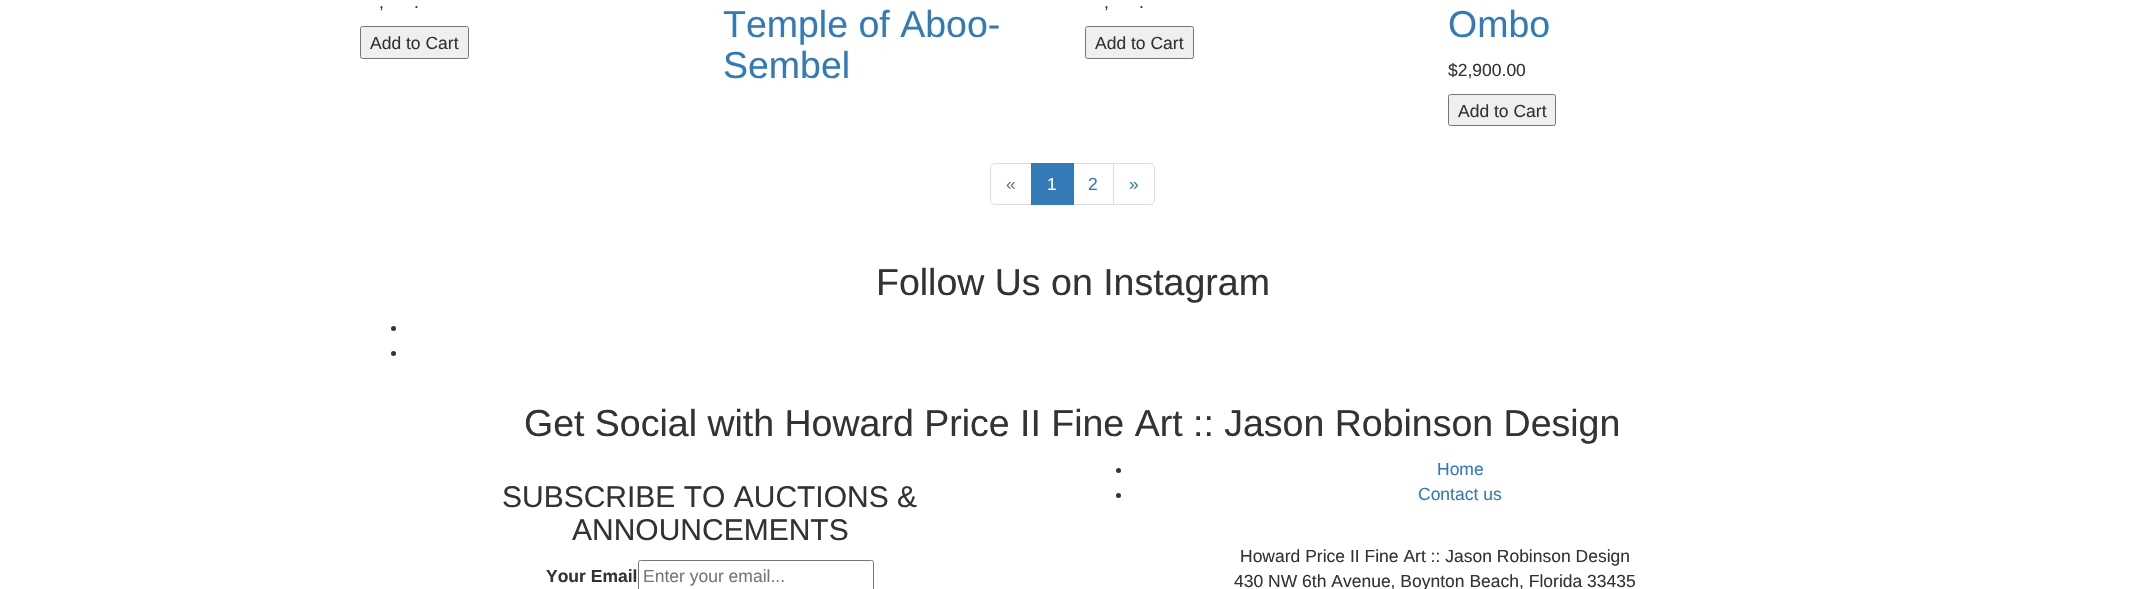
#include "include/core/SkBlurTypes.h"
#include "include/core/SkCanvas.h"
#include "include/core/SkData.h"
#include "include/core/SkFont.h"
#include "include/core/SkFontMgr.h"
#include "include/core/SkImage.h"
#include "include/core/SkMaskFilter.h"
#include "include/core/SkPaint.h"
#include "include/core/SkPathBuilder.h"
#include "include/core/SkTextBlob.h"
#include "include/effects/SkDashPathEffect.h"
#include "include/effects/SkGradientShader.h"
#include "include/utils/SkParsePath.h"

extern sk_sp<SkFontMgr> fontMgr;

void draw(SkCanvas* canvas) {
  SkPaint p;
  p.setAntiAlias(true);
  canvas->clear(SK_ColorWHITE);
  p.setColor(SkColorSetRGB(239, 239, 239));
  canvas->drawRoundRect(SkRect::MakeLTRB(360.5f, 26.5f, 468.5f, 58.5f), 2, 2, p);
  p.setStyle(SkPaint::kStroke_Style);
  p.setStrokeWidth(1);
  p.setColor(SkColorSetRGB(118, 118, 118));
  canvas->drawRoundRect(SkRect::MakeLTRB(360.5f, 26.5f, 468.5f, 58.5f), 2, 2, p);
  p.setStyle(SkPaint::kFill_Style);
  p.setColor(SkColorSetRGB(239, 239, 239));
  canvas->drawRoundRect(SkRect::MakeLTRB(1085.5f, 26.5f, 1193.5f, 58.5f), 2, 2, p);
  p.setStyle(SkPaint::kStroke_Style);
  p.setColor(SkColorSetRGB(118, 118, 118));
  canvas->drawRoundRect(SkRect::MakeLTRB(1085.5f, 26.5f, 1193.5f, 58.5f), 2, 2, p);
  p.setStyle(SkPaint::kFill_Style);
  p.setColor(SkColorSetRGB(239, 239, 239));
  canvas->drawRoundRect(SkRect::MakeLTRB(1448.5f, 94.5f, 1555.5f, 125.5f), 2, 2, p);
  p.setStyle(SkPaint::kStroke_Style);
  p.setColor(SkColorSetRGB(118, 118, 118));
  canvas->drawRoundRect(SkRect::MakeLTRB(1448.5f, 94.5f, 1555.5f, 125.5f), 2, 2, p);
  p.setColor(SkColorSetRGB(221, 221, 221));
  canvas->drawPath(SkPathBuilder().moveTo(995, 163.5f).lineTo(1032.5f, 163.5f).lineTo(1032.5f, 204.5f).lineTo(995, 204.5f).cubicTo(992.5f, 204.5f, 990.5f, 202.5f, 990.5f, 200).lineTo(990.5f, 168).cubicTo(990.5f, 165.5f, 992.5f, 163.5f, 995, 163.5f).close().detach(), p);
  canvas->drawRect(SkRect::MakeLTRB(1073.5f, 163.5f, 1113.5f, 204.5f), p);
  p.setStyle(SkPaint::kFill_Style);
  p.setColor(SkColorSetRGB(51, 122, 183));
  canvas->drawRect(SkRect::MakeLTRB(1031, 163, 1074, 205), p);
  p.setColor(SK_ColorWHITE);
  canvas->drawPath(SkPathBuilder().moveTo(1113.5f, 163.5f).lineTo(1150, 163.5f).cubicTo(1152.5f, 163.5f, 1154.5f, 165.5f, 1154.5f, 168).lineTo(1154.5f, 200).cubicTo(1154.5f, 202.5f, 1152.5f, 204.5f, 1150, 204.5f).lineTo(1113.5f, 204.5f).close().detach(), p);
  p.setStyle(SkPaint::kStroke_Style);
  p.setColor(SkColorSetRGB(221, 221, 221));
  canvas->drawPath(SkPathBuilder().moveTo(1113.5f, 163.5f).lineTo(1150, 163.5f).cubicTo(1152.5f, 163.5f, 1154.5f, 165.5f, 1154.5f, 168).lineTo(1154.5f, 200).cubicTo(1154.5f, 202.5f, 1152.5f, 204.5f, 1150, 204.5f).lineTo(1113.5f, 204.5f).close().detach(), p);
  p.setStyle(SkPaint::kFill_Style);
  p.setColor(SkColorSetRGB(51, 51, 51));
  canvas->drawCircle(393.5f, 328.5f, 2.5f, p);
  canvas->drawCircle(393.5f, 353.5f, 2.5f, p);
  p.setStyle(SkPaint::kStroke_Style);
  p.setColor(SkColorSetRGB(118, 118, 118));
  canvas->drawRoundRect(SkRect::MakeLTRB(638.5f, 560.5f, 873.5f, 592.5f), 2, 2, p);
  p.setStyle(SkPaint::kFill_Style);
  p.setColor(SkColorSetRGB(51, 51, 51));
  canvas->drawCircle(1118.5f, 470.5f, 2.5f, p);
  canvas->drawCircle(1118.5f, 495.5f, 2.5f, p);
  SkFont font1(fontMgr->matchFamilyStyle("Liberation Sans", SkFontStyle::Normal()), 17.5f);
  font1.setSubpixel(true);
  canvas->drawString(",", 379, 8, font1, p);
  canvas->drawString(".", 414, 8, font1, p);
  canvas->drawString("Add to Cart", 370, 49, font1, p);
  SkFont font2(fontMgr->matchFamilyStyle("Liberation Sans", SkFontStyle::Normal()), 37.5f);
  font2.setSubpixel(true);
  p.setColor(SkColorSetRGB(51, 122, 183));
  canvas->drawString("Temple of Aboo-", 723, 37, font2, p);
  canvas->drawString("Sembel", 723, 78, font2, p);
  p.setColor(SkColorSetRGB(51, 51, 51));
  canvas->drawString(",", 1104, 8, font1, p);
  canvas->drawString(".", 1139, 8, font1, p);
  canvas->drawString("Add to Cart", 1095, 49, font1, p);
  p.setColor(SkColorSetRGB(51, 122, 183));
  canvas->drawString("Ombo", 1448, 37, font2, p);
  p.setColor(SkColorSetRGB(51, 51, 51));
  canvas->drawString("$2,900.00", 1448, 76, font1, p);
  canvas->drawString("Add to Cart", 1458, 117, font1, p);
  p.setColor(SkColorSetRGB(119, 119, 119));
  canvas->drawString("«", 1006, 190, font1, p);
  p.setColor(SK_ColorWHITE);
  canvas->drawString("1", 1047, 190, font1, p);
  p.setColor(SkColorSetRGB(51, 122, 183));
  canvas->drawString("2", 1088, 190, font1, p);
  canvas->drawString("»", 1129, 190, font1, p);
  p.setColor(SkColorSetRGB(51, 51, 51));
  canvas->drawString("Follow Us on Instagram", 876, 295, font2, p);
  canvas->drawString("Get Social with Howard Price II Fine Art :: Jason Robinson Design", 524, 436, font2, p);
  SkFont font3(fontMgr->matchFamilyStyle("Liberation Sans", SkFontStyle::Normal()), 30);
  font3.setSubpixel(true);
  canvas->drawString("SUBSCRIBE TO AUCTIONS &", 502, 507, font3, p);
  canvas->drawString("ANNOUNCEMENTS", 572, 540, font3, p);
  SkFont font4(fontMgr->matchFamilyStyle("Liberation Sans", SkFontStyle::Bold()), 17.5f);
  font4.setSubpixel(true);
  canvas->drawString("Your Email", 546, 582, font4, p);
  p.setColor(SkColorSetRGB(119, 119, 119));
  canvas->drawString("Enter your email...", 643, 582, font1, p);
  p.setColor(SkColorSetRGB(51, 122, 183));
  canvas->drawString("Home", 1437, 475, font1, p);
  canvas->drawString("Contact us", 1418, 500, font1, p);
  p.setColor(SkColorSetRGB(51, 51, 51));
  canvas->drawString("Howard Price II Fine Art :: Jason Robinson Design", 1240, 562, font1, p);
  canvas->drawString("430 NW 6th Avenue, Boynton Beach, Florida 33435", 1234, 587, font1, p);
}
